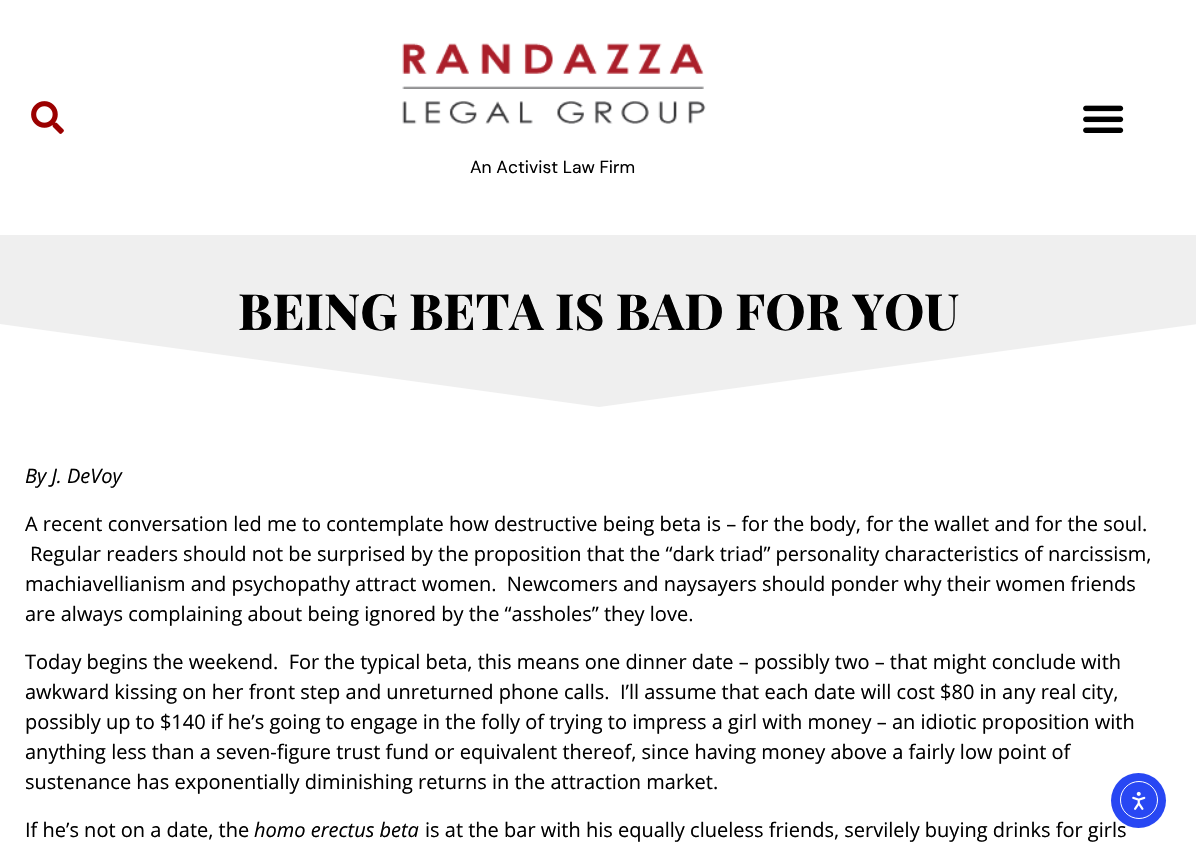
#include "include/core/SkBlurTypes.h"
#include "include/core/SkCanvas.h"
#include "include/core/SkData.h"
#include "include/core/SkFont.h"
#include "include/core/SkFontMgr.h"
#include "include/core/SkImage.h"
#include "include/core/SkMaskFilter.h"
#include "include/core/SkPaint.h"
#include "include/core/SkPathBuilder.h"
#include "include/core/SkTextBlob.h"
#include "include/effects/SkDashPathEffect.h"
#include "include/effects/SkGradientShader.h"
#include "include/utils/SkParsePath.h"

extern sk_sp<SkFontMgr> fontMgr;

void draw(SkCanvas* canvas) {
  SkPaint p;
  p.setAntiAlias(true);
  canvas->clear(SK_ColorWHITE);
  canvas->drawImageRect(SkImages::DeferredFromEncodedData(SkData::MakeFromFileName("images/1.png")), SkRect::MakeLTRB(31, 101, 64, 134), SkSamplingOptions());
  canvas->drawImageRect(SkImages::DeferredFromEncodedData(SkData::MakeFromFileName("images/2.png")), SkRect::MakeLTRB(1083, 105, 1124, 133), SkSamplingOptions());
  canvas->drawImageRect(SkImages::DeferredFromEncodedData(SkData::MakeFromFileName("images/3.png")), SkRect::MakeLTRB(402, 43, 706, 124), SkSamplingOptions());
  p.setColor(SkColorSetRGB(239, 239, 239));
  canvas->drawRect(SkRect::MakeLTRB(0, 235, 1196, 407), p);
  SkFont font1(fontMgr->matchFamilyStyle("DM Sans", SkFontStyle::Normal()), 17.5f);
  font1.setSubpixel(true);
  p.setColor(SK_ColorBLACK);
  canvas->drawString("An Activist Law Firm", 470, 173, font1, p);
  SkFont font2(fontMgr->matchFamilyStyle("Playfair Display", SkFontStyle(800, SkFontStyle::kNormal_Width, SkFontStyle::kUpright_Slant)), 50);
  font2.setSubpixel(true);
  canvas->drawString("BEING BETA IS BAD FOR YOU", 238, 330, font2, p);
  p.setColor(SK_ColorWHITE);
  canvas->drawPath(SkPathBuilder().moveTo(599, 407).lineTo(0, 324).lineTo(0, 411).lineTo(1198, 411).lineTo(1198, 324).close().detach(), p);
  SkFont font3(fontMgr->matchFamilyStyle("Open Sans", SkFontStyle::Italic()), 20);
  font3.setSubpixel(true);
  p.setColor(SK_ColorBLACK);
  canvas->drawString("By J. DeVoy", 25, 483, font3, p);
  SkFont font4(fontMgr->matchFamilyStyle("Open Sans", SkFontStyle::Normal()), 20);
  font4.setSubpixel(true);
  canvas->drawString("A recent conversation led me to contemplate how destructive being beta is – for the body, for the wallet and for the soul.", 25, 531, font4, p);
  canvas->drawString("Regular readers should not be surprised by the proposition that the “dark triad” personality characteristics of narcissism,", 30, 561, font4, p);
  canvas->drawString("machiavellianism and psychopathy attract women.  Newcomers and naysayers should ponder why their women friends", 25, 591, font4, p);
  canvas->drawString("are always complaining about being ignored by the “assholes” they love.", 25, 621, font4, p);
  canvas->drawString("Today begins the weekend.  For the typical beta, this means one dinner date – possibly two – that might conclude with", 25, 669, font4, p);
  canvas->drawString("awkward kissing on her front step and unreturned phone calls.  I’ll assume that each date will cost $80 in any real city,", 25, 699, font4, p);
  canvas->drawString("possibly up to $140 if he’s going to engage in the folly of trying to impress a girl with money – an idiotic proposition with", 25, 729, font4, p);
  canvas->drawString("anything less than a seven-figure trust fund or equivalent thereof, since having money above a fairly low point of", 25, 759, font4, p);
  canvas->drawString("sustenance has exponentially diminishing returns in the attraction market.", 25, 789, font4, p);
  canvas->drawString("If he’s not on a date, the", 25, 837, font4, p);
  canvas->drawString("homo erectus beta", 254, 837, font3, p);
  canvas->drawString("is at the bar with his equally clueless friends, servilely buying drinks for girls", 425, 837, font4, p);
  p.setColor(SkColorSetRGB(40, 71, 243));
  canvas->drawCircle(1138.5f, 800.5f, 27.5f, p);
  p.setStyle(SkPaint::kStroke_Style);
  p.setStrokeWidth(1);
  p.setColor(SK_ColorWHITE);
  canvas->drawCircle(1139, 800, 18.5f, p);
  canvas->drawImageRect(SkImages::DeferredFromEncodedData(SkData::MakeFromFileName("images/4.png")), SkRect::MakeLTRB(1132, 791, 1146, 810), SkSamplingOptions());
}
